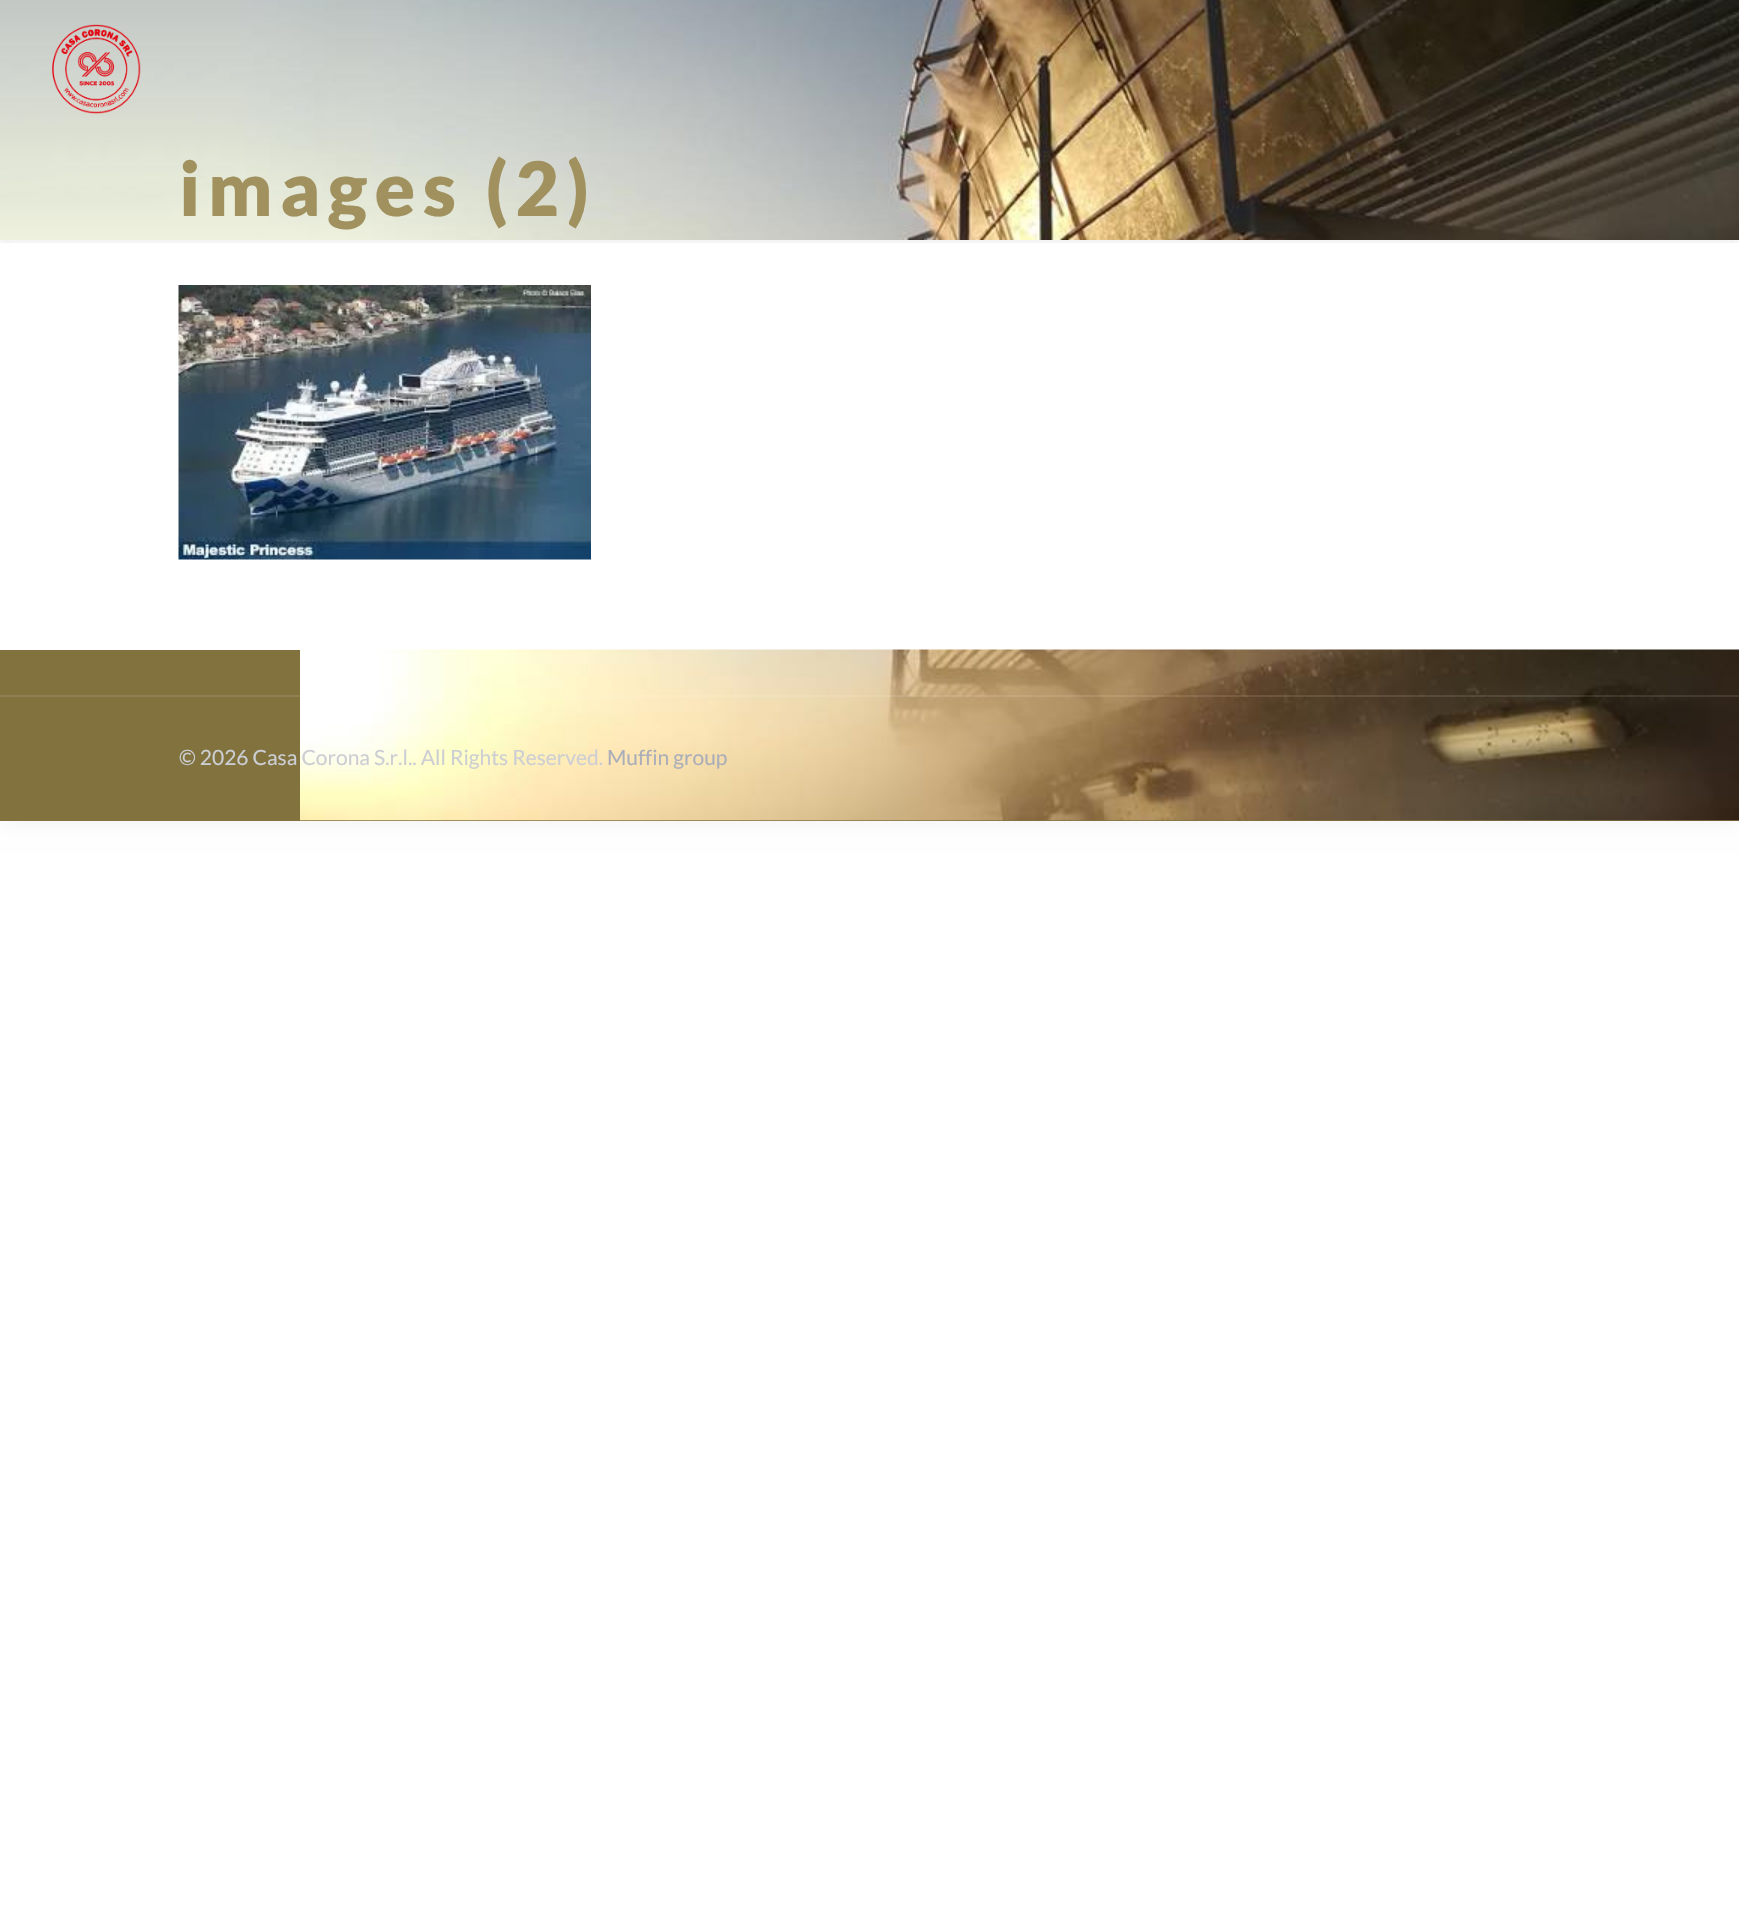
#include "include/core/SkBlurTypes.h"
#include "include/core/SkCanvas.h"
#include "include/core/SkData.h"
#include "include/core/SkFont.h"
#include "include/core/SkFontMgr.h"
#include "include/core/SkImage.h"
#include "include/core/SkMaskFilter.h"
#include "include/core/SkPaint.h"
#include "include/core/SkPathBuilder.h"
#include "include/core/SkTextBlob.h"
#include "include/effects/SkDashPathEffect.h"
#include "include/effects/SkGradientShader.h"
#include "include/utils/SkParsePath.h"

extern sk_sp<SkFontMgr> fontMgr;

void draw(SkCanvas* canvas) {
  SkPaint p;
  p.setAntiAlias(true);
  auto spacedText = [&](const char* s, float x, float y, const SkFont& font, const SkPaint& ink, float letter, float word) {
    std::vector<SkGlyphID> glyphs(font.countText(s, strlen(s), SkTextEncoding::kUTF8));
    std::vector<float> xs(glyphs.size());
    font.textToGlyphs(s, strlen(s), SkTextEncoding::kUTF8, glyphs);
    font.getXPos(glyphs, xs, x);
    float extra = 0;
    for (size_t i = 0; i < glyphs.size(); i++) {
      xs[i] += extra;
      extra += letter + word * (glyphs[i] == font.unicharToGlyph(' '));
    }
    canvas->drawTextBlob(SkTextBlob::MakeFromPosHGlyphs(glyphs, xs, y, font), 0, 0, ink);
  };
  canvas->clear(SK_ColorWHITE);
  p.setColor(SkColorSetARGB(15, 0, 0, 0));
  p.setMaskFilter(SkMaskFilter::MakeBlur(kNormal_SkBlurStyle, 11));
  canvas->drawRect(SkRect::MakeLTRB(0, 0, 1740, 821), p);
  p.setMaskFilter(nullptr);
  p.setColor(SK_ColorWHITE);
  canvas->drawRect(SkRect::MakeLTRB(0, 243, 1739, 650), p);
  canvas->drawImageRect(SkImages::DeferredFromEncodedData(SkData::MakeFromFileName("images/1.png")), SkRect::MakeLTRB(0, 0, 1739, 240), SkSamplingOptions());
  canvas->drawImageRect(SkImages::DeferredFromEncodedData(SkData::MakeFromFileName("images/2.png")), SkRect::MakeLTRB(52, 24, 141, 114), SkSamplingOptions());
  p.setColor(SkColorSetRGB(245, 245, 245));
  canvas->drawRect(SkRect::MakeLTRB(10, 240, 1730, 243), p);
  canvas->drawImageRect(SkImages::DeferredFromEncodedData(SkData::MakeFromFileName("images/3.png")), SkRect::MakeLTRB(178, 285, 591, 560), SkSamplingOptions());
  p.setColor(SkColorSetRGB(129, 114, 62));
  canvas->drawRect(SkRect::MakeLTRB(0, 650, 1739, 821), p);
  canvas->drawImageRect(SkImages::DeferredFromEncodedData(SkData::MakeFromFileName("images/4.png")), SkRect::MakeLTRB(300, 649, 1739, 821), SkSamplingOptions());
  p.setColor(SkColorSetARGB(26, 255, 255, 255));
  canvas->drawRect(SkRect::MakeLTRB(0, 695, 1739, 697), p);
  SkFont font1(fontMgr->matchFamilyStyle("Lato", SkFontStyle(900, SkFontStyle::kNormal_Width, SkFontStyle::kUpright_Slant)), 75);
  font1.setSubpixel(true);
  p.setColor(SkColorSetRGB(160, 145, 95));
  spacedText("images (2)", 179, 216, font1, p, 7.5f, 0);
  SkFont font2(fontMgr->matchFamilyStyle("Lato", SkFontStyle::Normal()), 21);
  font2.setSubpixel(true);
  p.setColor(SkColorSetRGB(204, 206, 212));
  canvas->drawString("© 2026 Casa Corona S.r.l.. All Rights Reserved.", 179, 765, font2, p);
  p.setColor(SkColorSetRGB(170, 174, 185));
  canvas->drawString("Muffin group", 607, 765, font2, p);
}
